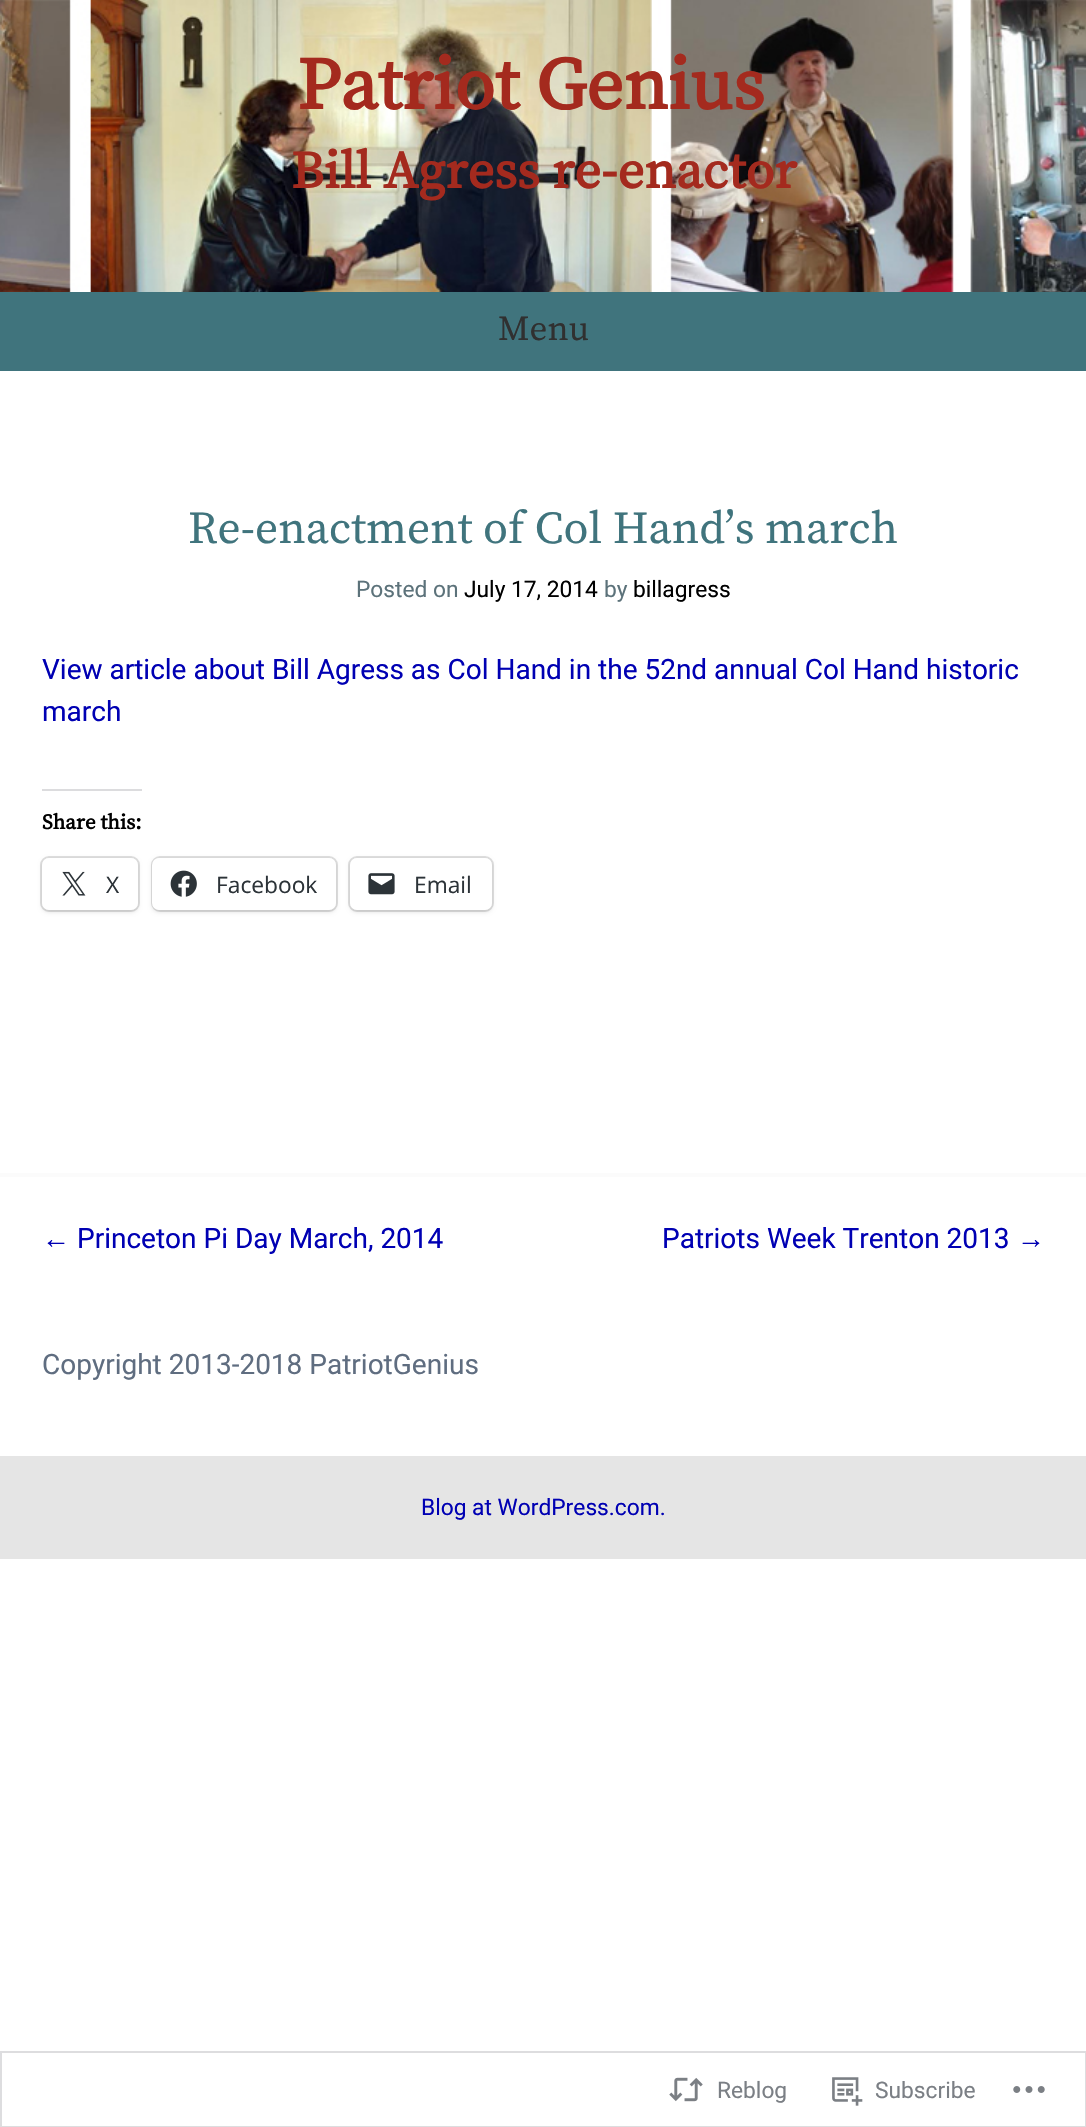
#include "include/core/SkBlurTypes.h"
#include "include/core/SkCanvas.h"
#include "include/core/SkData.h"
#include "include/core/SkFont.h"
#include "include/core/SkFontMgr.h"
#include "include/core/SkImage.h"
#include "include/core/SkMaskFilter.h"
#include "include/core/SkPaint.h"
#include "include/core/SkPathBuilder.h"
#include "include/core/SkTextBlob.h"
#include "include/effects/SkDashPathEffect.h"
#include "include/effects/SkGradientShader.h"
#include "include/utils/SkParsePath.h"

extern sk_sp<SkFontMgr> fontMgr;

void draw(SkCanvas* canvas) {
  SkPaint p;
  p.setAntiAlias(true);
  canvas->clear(SK_ColorWHITE);
  canvas->drawImageRect(SkImages::DeferredFromEncodedData(SkData::MakeFromFileName("images/1.png")), SkRect::MakeLTRB(0, 0, 1086, 292), SkSamplingOptions());
  p.setColor(SkColorSetRGB(64, 116, 125));
  canvas->drawRect(SkRect::MakeLTRB(0, 292, 1086, 371), p);
  p.setColor(SkColorSetRGB(251, 251, 251));
  canvas->drawRect(SkRect::MakeLTRB(0, 1173, 1086, 1177), p);
  p.setColor(SkColorSetRGB(220, 220, 222));
  canvas->drawRect(SkRect::MakeLTRB(42, 789, 142, 791), p);
  p.setStyle(SkPaint::kStroke_Style);
  p.setStrokeWidth(2);
  p.setColor(SkColorSetRGB(224, 224, 224));
  canvas->drawRoundRect(SkRect::MakeLTRB(41, 857, 139, 911), 8, 8, p);
  p.setStyle(SkPaint::kFill_Style);
  p.setColor(SkColorSetARGB(31, 0, 0, 0));
  p.setMaskFilter(SkMaskFilter::MakeBlur(kNormal_SkBlurStyle, 2));
  canvas->drawRoundRect(SkRect::MakeLTRB(42, 859, 138, 912), 7, 7, p);
  p.setMaskFilter(nullptr);
  p.setColor(SK_ColorWHITE);
  canvas->drawRoundRect(SkRect::MakeLTRB(42, 858, 138, 910), 7, 7, p);
  canvas->drawImageRect(SkImages::DeferredFromEncodedData(SkData::MakeFromFileName("images/2.png")), SkRect::MakeLTRB(62, 871, 86, 896), SkSamplingOptions());
  p.setStyle(SkPaint::kStroke_Style);
  p.setColor(SkColorSetRGB(224, 224, 224));
  canvas->drawRoundRect(SkRect::MakeLTRB(152, 857, 337, 911), 8, 8, p);
  p.setStyle(SkPaint::kFill_Style);
  p.setColor(SkColorSetARGB(31, 0, 0, 0));
  p.setMaskFilter(SkMaskFilter::MakeBlur(kNormal_SkBlurStyle, 2));
  canvas->drawRoundRect(SkRect::MakeLTRB(152, 859, 336, 912), 7, 7, p);
  p.setMaskFilter(nullptr);
  p.setColor(SK_ColorWHITE);
  canvas->drawRoundRect(SkRect::MakeLTRB(152, 858, 336, 910), 7, 7, p);
  canvas->drawImageRect(SkImages::DeferredFromEncodedData(SkData::MakeFromFileName("images/3.png")), SkRect::MakeLTRB(170, 870, 197, 897), SkSamplingOptions());
  p.setStyle(SkPaint::kStroke_Style);
  p.setColor(SkColorSetRGB(224, 224, 224));
  canvas->drawRoundRect(SkRect::MakeLTRB(349, 857, 493, 911), 8, 8, p);
  p.setStyle(SkPaint::kFill_Style);
  p.setColor(SkColorSetARGB(31, 0, 0, 0));
  p.setMaskFilter(SkMaskFilter::MakeBlur(kNormal_SkBlurStyle, 2));
  canvas->drawRoundRect(SkRect::MakeLTRB(350, 859, 492, 912), 7, 7, p);
  p.setMaskFilter(nullptr);
  p.setColor(SK_ColorWHITE);
  canvas->drawRoundRect(SkRect::MakeLTRB(350, 858, 492, 910), 7, 7, p);
  canvas->drawImageRect(SkImages::DeferredFromEncodedData(SkData::MakeFromFileName("images/4.png")), SkRect::MakeLTRB(368, 873, 395, 895), SkSamplingOptions());
  p.setColor(SkColorSetRGB(229, 229, 229));
  canvas->drawRect(SkRect::MakeLTRB(0, 1456, 1086, 1559), p);
  p.setStyle(SkPaint::kStroke_Style);
  p.setColor(SkColorSetRGB(221, 221, 223));
  canvas->drawRect(SkRect::MakeLTRB(1, 2052, 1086, 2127), p);
  canvas->drawImageRect(SkImages::DeferredFromEncodedData(SkData::MakeFromFileName("images/5.png")), SkRect::MakeLTRB(669, 2077, 703, 2102), SkSamplingOptions());
  canvas->drawImageRect(SkImages::DeferredFromEncodedData(SkData::MakeFromFileName("images/6.png")), SkRect::MakeLTRB(832, 2077, 863, 2106), SkSamplingOptions());
  canvas->drawImageRect(SkImages::DeferredFromEncodedData(SkData::MakeFromFileName("images/7.png")), SkRect::MakeLTRB(1013, 2086, 1045, 2093), SkSamplingOptions());
  SkFont font1(fontMgr->matchFamilyStyle("Source Serif Pro", SkFontStyle::Bold()), 73.5f);
  font1.setSubpixel(true);
  p.setStyle(SkPaint::kFill_Style);
  p.setColor(SkColorSetRGB(164, 42, 30));
  canvas->drawString("Patriot Genius", 297, 109, font1, p);
  SkFont font2(fontMgr->matchFamilyStyle("Source Serif Pro", SkFontStyle::Bold()), 52.5f);
  font2.setSubpixel(true);
  canvas->drawString("Bill Agress re-enactor", 291, 188, font2, p);
  SkFont font3(fontMgr->matchFamilyStyle("Source Serif Pro", SkFontStyle::Normal()), 35);
  font3.setSubpixel(true);
  p.setColor(SkColorSetRGB(48, 48, 48));
  canvas->drawString("Menu", 498, 340, font3, p);
  SkFont font4(fontMgr->matchFamilyStyle("Source Serif Pro", SkFontStyle::Normal()), 45.5f);
  font4.setSubpixel(true);
  p.setColor(SkColorSetRGB(64, 116, 125));
  canvas->drawString("Re-enactment of Col Hand’s march", 188, 543, font4, p);
  SkFont font5(fontMgr->matchFamilyStyle("Roboto", SkFontStyle::Normal()), 22.75f);
  font5.setSubpixel(true);
  p.setColor(SkColorSetRGB(92, 114, 122));
  canvas->drawString("Posted on", 356, 597, font5, p);
  p.setColor(SK_ColorBLACK);
  canvas->drawString("July 17, 2014", 464, 597, font5, p);
  p.setColor(SkColorSetRGB(92, 114, 122));
  canvas->drawString("by", 604, 597, font5, p);
  p.setColor(SK_ColorBLACK);
  canvas->drawString("billagress", 633, 597, font5, p);
  SkFont font6(fontMgr->matchFamilyStyle("Roboto", SkFontStyle::Normal()), 28);
  font6.setSubpixel(true);
  p.setColor(SkColorSetRGB(0, 0, 179));
  canvas->drawString("View article about Bill Agress as Col Hand in the 52nd annual Col Hand historic", 42, 679, font6, p);
  canvas->drawString("march", 42, 721, font6, p);
  SkFont font7(fontMgr->matchFamilyStyle("Source Serif Pro", SkFontStyle::Bold()), 21);
  font7.setSubpixel(true);
  p.setColor(SK_ColorBLACK);
  canvas->drawString("Share this:", 42, 829, font7, p);
  SkFont font8(fontMgr->matchFamilyStyle("Open Sans", SkFontStyle::Normal()), 22.75f);
  font8.setSubpixel(true);
  p.setColor(SkColorSetRGB(44, 51, 56));
  canvas->drawString("X", 106, 893, font8, p);
  canvas->drawString("Facebook", 216, 893, font8, p);
  canvas->drawString("Email", 414, 893, font8, p);
  SkFont font9(fontMgr->matchFamilyStyle("Liberation Sans", SkFontStyle::Normal()), 28);
  font9.setSubpixel(true);
  p.setColor(SkColorSetRGB(0, 0, 179));
  canvas->drawString("←", 42, 1248, font9, p);
  canvas->drawString("Princeton Pi Day March, 2014", 77, 1248, font6, p);
  canvas->drawString("Patriots Week Trenton 2013", 662, 1248, font6, p);
  canvas->drawString("→", 1017, 1248, font9, p);
  p.setColor(SkColorSetRGB(95, 109, 128));
  canvas->drawString("Copyright 2013-2018 PatriotGenius", 42, 1374, font6, p);
  p.setColor(SkColorSetRGB(0, 0, 179));
  canvas->drawString("Blog at WordPress.com.", 421, 1515, font5, p);
  p.setColor(SkColorSetRGB(123, 127, 133));
  canvas->drawString("Reblog", 717, 2098, font5, p);
  canvas->drawString("Subscribe", 875, 2098, font5, p);
}
